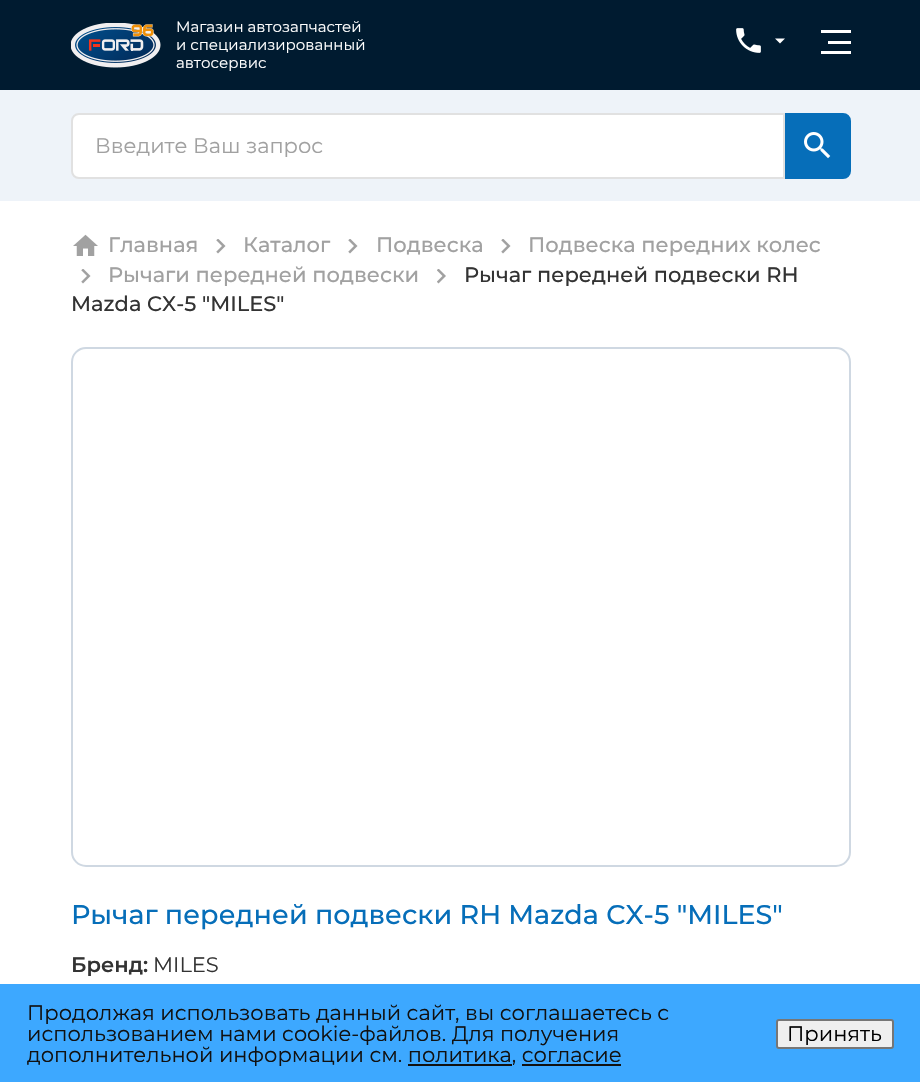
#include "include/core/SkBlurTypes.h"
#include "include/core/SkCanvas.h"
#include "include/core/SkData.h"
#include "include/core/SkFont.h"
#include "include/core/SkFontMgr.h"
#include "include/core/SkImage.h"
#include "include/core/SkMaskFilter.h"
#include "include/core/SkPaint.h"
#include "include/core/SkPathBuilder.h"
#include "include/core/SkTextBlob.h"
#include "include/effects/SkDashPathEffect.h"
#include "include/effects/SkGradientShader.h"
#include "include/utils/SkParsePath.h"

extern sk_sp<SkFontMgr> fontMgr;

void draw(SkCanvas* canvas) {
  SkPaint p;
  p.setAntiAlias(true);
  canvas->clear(SK_ColorWHITE);
  p.setColor(SkColorSetRGB(0, 27, 48));
  canvas->drawRect(SkRect::MakeLTRB(0, 0, 920, 90), p);
  canvas->drawImageRect(SkImages::DeferredFromEncodedData(SkData::MakeFromFileName("images/1.png")), SkRect::MakeLTRB(71, 23, 161, 68), SkSamplingOptions());
  canvas->drawImageRect(SkImages::DeferredFromEncodedData(SkData::MakeFromFileName("images/2.png")), SkRect::MakeLTRB(736, 28, 761, 53), SkSamplingOptions());
  p.setColor(SK_ColorWHITE);
  canvas->drawPath(SkPathBuilder().moveTo(775, 38.5f).lineTo(780, 43.5f).lineTo(785, 38.5f).close().detach(), p);
  canvas->drawRect(SkRect::MakeLTRB(821, 30, 851, 33), p);
  canvas->drawRect(SkRect::MakeLTRB(828, 41, 851, 44), p);
  canvas->drawRect(SkRect::MakeLTRB(821, 51, 851, 54), p);
  p.setColor(SkColorSetRGB(238, 243, 249));
  canvas->drawRect(SkRect::MakeLTRB(0, 90, 920, 201), p);
  p.setColor(SK_ColorWHITE);
  canvas->drawPath(SkPathBuilder().moveTo(79, 114).lineTo(784, 114).lineTo(784, 178).lineTo(79, 178).cubicTo(75, 178, 72, 175, 72, 171).lineTo(72, 121).cubicTo(72, 117, 75, 114, 79, 114).close().detach(), p);
  p.setStyle(SkPaint::kStroke_Style);
  p.setStrokeWidth(2);
  p.setColor(SkColorSetRGB(225, 225, 225));
  canvas->drawPath(SkPathBuilder().moveTo(79, 114).lineTo(784, 114).lineTo(784, 178).lineTo(79, 178).cubicTo(75, 178, 72, 175, 72, 171).lineTo(72, 121).cubicTo(72, 117, 75, 114, 79, 114).close().detach(), p);
  p.setStyle(SkPaint::kFill_Style);
  p.setColor(SkColorSetRGB(6, 110, 185));
  canvas->drawPath(SkPathBuilder().moveTo(786, 114).lineTo(843, 114).cubicTo(847, 114, 850, 117, 850, 121).lineTo(850, 171).cubicTo(850, 175, 847, 178, 843, 178).lineTo(786, 178).close().detach(), p);
  p.setStyle(SkPaint::kStroke_Style);
  canvas->drawPath(SkPathBuilder().moveTo(786, 114).lineTo(843, 114).cubicTo(847, 114, 850, 117, 850, 121).lineTo(850, 171).cubicTo(850, 175, 847, 178, 843, 178).lineTo(786, 178).close().detach(), p);
  canvas->drawImageRect(SkImages::DeferredFromEncodedData(SkData::MakeFromFileName("images/3.png")), SkRect::MakeLTRB(804, 132, 831, 159), SkSamplingOptions());
  canvas->drawImageRect(SkImages::DeferredFromEncodedData(SkData::MakeFromFileName("images/4.png")), SkRect::MakeLTRB(73, 234, 98, 256), SkSamplingOptions());
  canvas->drawImageRect(SkImages::DeferredFromEncodedData(SkData::MakeFromFileName("images/5.png")), SkRect::MakeLTRB(216, 239, 226, 254), SkSamplingOptions());
  canvas->drawImageRect(SkImages::DeferredFromEncodedData(SkData::MakeFromFileName("images/5.png")), SkRect::MakeLTRB(348, 239, 358, 254), SkSamplingOptions());
  canvas->drawImageRect(SkImages::DeferredFromEncodedData(SkData::MakeFromFileName("images/5.png")), SkRect::MakeLTRB(501, 239, 511, 254), SkSamplingOptions());
  canvas->drawImageRect(SkImages::DeferredFromEncodedData(SkData::MakeFromFileName("images/5.png")), SkRect::MakeLTRB(81, 269, 91, 284), SkSamplingOptions());
  canvas->drawImageRect(SkImages::DeferredFromEncodedData(SkData::MakeFromFileName("images/6.png")), SkRect::MakeLTRB(437, 269, 446, 284), SkSamplingOptions());
  p.setColor(SkColorSetRGB(207, 216, 226));
  canvas->drawRoundRect(SkRect::MakeLTRB(72, 348, 850, 866), 14, 14, p);
  p.setStyle(SkPaint::kFill_Style);
  p.setColor(SkColorSetRGB(61, 168, 255));
  canvas->drawRect(SkRect::MakeLTRB(0, 984, 920, 1082), p);
  p.setColor(SkColorSetRGB(17, 17, 17));
  canvas->drawRect(SkRect::MakeLTRB(408, 1064, 512, 1066), p);
  canvas->drawRect(SkRect::MakeLTRB(522, 1064, 621, 1066), p);
  p.setColor(SkColorSetRGB(239, 239, 239));
  canvas->drawRoundRect(SkRect::MakeLTRB(777, 1020, 893, 1048), 2, 2, p);
  p.setStyle(SkPaint::kStroke_Style);
  p.setColor(SkColorSetRGB(118, 118, 118));
  canvas->drawRoundRect(SkRect::MakeLTRB(777, 1020, 893, 1048), 2, 2, p);
  SkFont font1(fontMgr->matchFamilyStyle("Montserrat", SkFontStyle::Normal()), 15);
  font1.setSubpixel(true);
  p.setStyle(SkPaint::kFill_Style);
  p.setColor(SK_ColorWHITE);
  canvas->drawString("Магазин автозапчастей", 176, 32, font1, p);
  canvas->drawString("и специализированный", 176, 50, font1, p);
  canvas->drawString("автосервис", 176, 68, font1, p);
  SkFont font2(fontMgr->matchFamilyStyle("Montserrat", SkFontStyle::Normal()), 21);
  font2.setSubpixel(true);
  p.setColor(SkColorSetRGB(161, 161, 161));
  canvas->drawString("Введите Ваш запрос", 95, 153, font2, p);
  SkFont font3(fontMgr->matchFamilyStyle("Montserrat", SkFontStyle(500, SkFontStyle::kNormal_Width, SkFontStyle::kUpright_Slant)), 21);
  font3.setSubpixel(true);
  canvas->drawString("Главная", 108, 252, font3, p);
  canvas->drawString("Каталог", 243, 252, font3, p);
  canvas->drawString("Подвеска", 376, 252, font3, p);
  canvas->drawString("Подвеска передних колес", 528, 252, font3, p);
  canvas->drawString("Рычаги передней подвески", 108, 282, font3, p);
  p.setColor(SkColorSetRGB(51, 51, 51));
  canvas->drawString("Рычаг передней подвески RH", 464, 282, font3, p);
  canvas->drawString("Mazda CX-5 \"MILES\"", 71, 311, font3, p);
  SkFont font4(fontMgr->matchFamilyStyle("Montserrat", SkFontStyle(500, SkFontStyle::kNormal_Width, SkFontStyle::kUpright_Slant)), 27);
  font4.setSubpixel(true);
  p.setColor(SkColorSetRGB(6, 110, 185));
  canvas->drawString("Рычаг передней подвески RH Mazda CX-5 \"MILES\"", 71, 924, font4, p);
  SkFont font5(fontMgr->matchFamilyStyle("Montserrat", SkFontStyle(600, SkFontStyle::kNormal_Width, SkFontStyle::kUpright_Slant)), 21);
  font5.setSubpixel(true);
  p.setColor(SkColorSetRGB(51, 51, 51));
  canvas->drawString("Бренд:", 71, 972, font5, p);
  canvas->drawString("MILES", 153, 972, font2, p);
  p.setColor(SkColorSetRGB(17, 17, 17));
  canvas->drawString("Продолжая использовать данный сайт, вы соглашаетесь с", 27, 1020, font2, p);
  canvas->drawString("использованием нами cookie-файлов. Для получения", 27, 1041, font2, p);
  canvas->drawString("дополнительной информации см. политика, согласие", 27, 1062, font2, p);
  p.setColor(SK_ColorBLACK);
  canvas->drawString("Принять", 787, 1041, font2, p);
}
